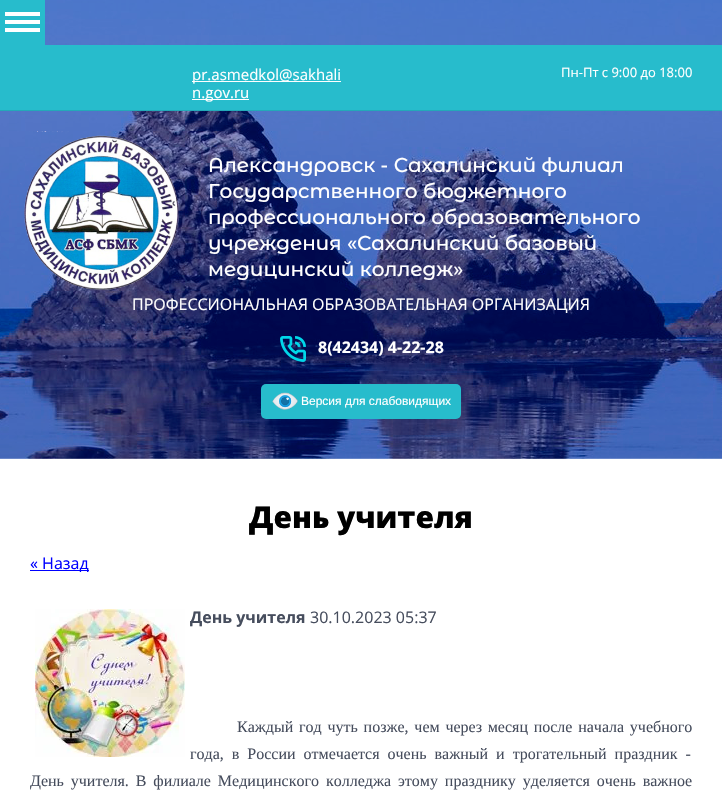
#include "include/core/SkBlurTypes.h"
#include "include/core/SkCanvas.h"
#include "include/core/SkData.h"
#include "include/core/SkFont.h"
#include "include/core/SkFontMgr.h"
#include "include/core/SkImage.h"
#include "include/core/SkMaskFilter.h"
#include "include/core/SkPaint.h"
#include "include/core/SkPathBuilder.h"
#include "include/core/SkTextBlob.h"
#include "include/effects/SkDashPathEffect.h"
#include "include/effects/SkGradientShader.h"
#include "include/utils/SkParsePath.h"

extern sk_sp<SkFontMgr> fontMgr;

void draw(SkCanvas* canvas) {
  SkPaint p;
  p.setAntiAlias(true);
  auto spacedText = [&](const char* s, float x, float y, const SkFont& font, const SkPaint& ink, float letter, float word) {
    std::vector<SkGlyphID> glyphs(font.countText(s, strlen(s), SkTextEncoding::kUTF8));
    std::vector<float> xs(glyphs.size());
    font.textToGlyphs(s, strlen(s), SkTextEncoding::kUTF8, glyphs);
    font.getXPos(glyphs, xs, x);
    float extra = 0;
    for (size_t i = 0; i < glyphs.size(); i++) {
      xs[i] += extra;
      extra += letter + word * (glyphs[i] == font.unicharToGlyph(' '));
    }
    canvas->drawTextBlob(SkTextBlob::MakeFromPosHGlyphs(glyphs, xs, y, font), 0, 0, ink);
  };
  canvas->clear(SK_ColorWHITE);
  canvas->drawImageRect(SkImages::DeferredFromEncodedData(SkData::MakeFromFileName("images/1.png")), SkRect::MakeLTRB(0, 0, 722, 459), SkSamplingOptions());
  p.setColor(SkColorSetRGB(39, 188, 204));
  canvas->drawRect(SkRect::MakeLTRB(0, 0, 45, 45), p);
  p.setColor(SK_ColorWHITE);
  canvas->drawRect(SkRect::MakeLTRB(5, 12, 40, 16), p);
  canvas->drawRect(SkRect::MakeLTRB(5, 20, 40, 24), p);
  canvas->drawRect(SkRect::MakeLTRB(5, 28, 40, 32), p);
  p.setColor(SkColorSetRGB(39, 188, 204));
  canvas->drawRect(SkRect::MakeLTRB(0, 45, 722, 110), p);
  p.setColor(SkColorSetRGB(35, 169, 184));
  canvas->drawRect(SkRect::MakeLTRB(0, 110, 722, 111), p);
  p.setColor(SK_ColorWHITE);
  canvas->drawRect(SkRect::MakeLTRB(192, 81, 341, 82), p);
  canvas->drawRect(SkRect::MakeLTRB(192, 99, 249, 100), p);
  p.setColor(SkColorSetARGB(51, 255, 255, 255));
  canvas->drawRect(SkRect::MakeLTRB(0, 458, 722, 459), p);
  canvas->drawImageRect(SkImages::DeferredFromEncodedData(SkData::MakeFromFileName("images/2.png")), SkRect::MakeLTRB(20, 131, 179, 290), SkSamplingOptions());
  canvas->drawImageRect(SkImages::DeferredFromEncodedData(SkData::MakeFromFileName("images/3.png")), SkRect::MakeLTRB(280, 336, 306, 362), SkSamplingOptions());
  p.setColor(SkColorSetRGB(39, 188, 204));
  canvas->drawRoundRect(SkRect::MakeLTRB(261, 384, 461, 419), 5, 5, p);
  canvas->drawImageRect(SkImages::DeferredFromEncodedData(SkData::MakeFromFileName("images/4.png")), SkRect::MakeLTRB(272, 392, 298, 410), SkSamplingOptions());
  p.setColor(SkColorSetRGB(0, 0, 255));
  canvas->drawRect(SkRect::MakeLTRB(30, 570, 89, 571), p);
  canvas->drawImageRect(SkImages::DeferredFromEncodedData(SkData::MakeFromFileName("images/5.png")), SkRect::MakeLTRB(35, 609, 185, 757), SkSamplingOptions());
  SkFont font1(fontMgr->matchFamilyStyle("Open Sans", SkFontStyle::Normal()), 15);
  font1.setSubpixel(true);
  p.setColor(SK_ColorWHITE);
  canvas->drawString("pr.asmedkol@sakhali", 192, 80, font1, p);
  canvas->drawString("n.gov.ru", 192, 98, font1, p);
  SkFont font2(fontMgr->matchFamilyStyle("Open Sans", SkFontStyle::Normal()), 13);
  font2.setSubpixel(true);
  canvas->drawString("Пн-Пт с 9:00 до 18:00", 561, 77, font2, p);
  SkFont font3(fontMgr->matchFamilyStyle("Montserrat Alternates", SkFontStyle(500, SkFontStyle::kNormal_Width, SkFontStyle::kUpright_Slant)), 20);
  font3.setSubpixel(true);
  canvas->drawString("Александровск - Сахалинский филиал", 208, 172, font3, p);
  canvas->drawString("Государственного бюджетного", 208, 198, font3, p);
  canvas->drawString("профессионального образовательного", 208, 224, font3, p);
  canvas->drawString("учреждения «Сахалинский базовый", 208, 250, font3, p);
  canvas->drawString("медицинский колледж»", 208, 276, font3, p);
  SkFont font4(fontMgr->matchFamilyStyle("Open Sans", SkFontStyle::Normal()), 16);
  font4.setSubpixel(true);
  canvas->drawString("ПРОФЕССИОНАЛЬНАЯ ОБРАЗОВАТЕЛЬНАЯ ОРГАНИЗАЦИЯ", 132, 310, font4, p);
  SkFont font5(fontMgr->matchFamilyStyle("Open Sans", SkFontStyle::Bold()), 16);
  font5.setSubpixel(true);
  canvas->drawString("8(42434) 4-22-28", 318, 353, font5, p);
  SkFont font6(fontMgr->matchFamilyStyle("Liberation Sans", SkFontStyle::Normal()), 12);
  font6.setSubpixel(true);
  canvas->drawString("Версия для слабовидящих", 301, 405, font6, p);
  SkFont font7(fontMgr->matchFamilyStyle("Open Sans", SkFontStyle(800, SkFontStyle::kNormal_Width, SkFontStyle::kUpright_Slant)), 30);
  font7.setSubpixel(true);
  p.setColor(SK_ColorBLACK);
  canvas->drawString("День учителя", 249, 528, font7, p);
  p.setColor(SkColorSetRGB(0, 0, 255));
  canvas->drawString("« Назад", 30, 569, font4, p);
  p.setColor(SkColorSetRGB(70, 77, 93));
  canvas->drawString("День учителя", 190, 623, font5, p);
  canvas->drawString("30.10.2023 05:37", 310, 623, font4, p);
  SkFont font8(fontMgr->matchFamilyStyle("Liberation Serif", SkFontStyle::Normal()), 16);
  font8.setSubpixel(true);
  spacedText("Каждый год чуть позже, чем через месяц после начала учебного", 237, 732, font8, p, 0, 1.75f);
  spacedText("года, в России отмечается очень важный и трогательный праздник -", 190, 759, font8, p, 0, 4);
  spacedText("День учителя. В филиале Медицинского колледжа этому празднику уделяется очень важное", 30, 786, font8, p, 0, 2.9f);
}
